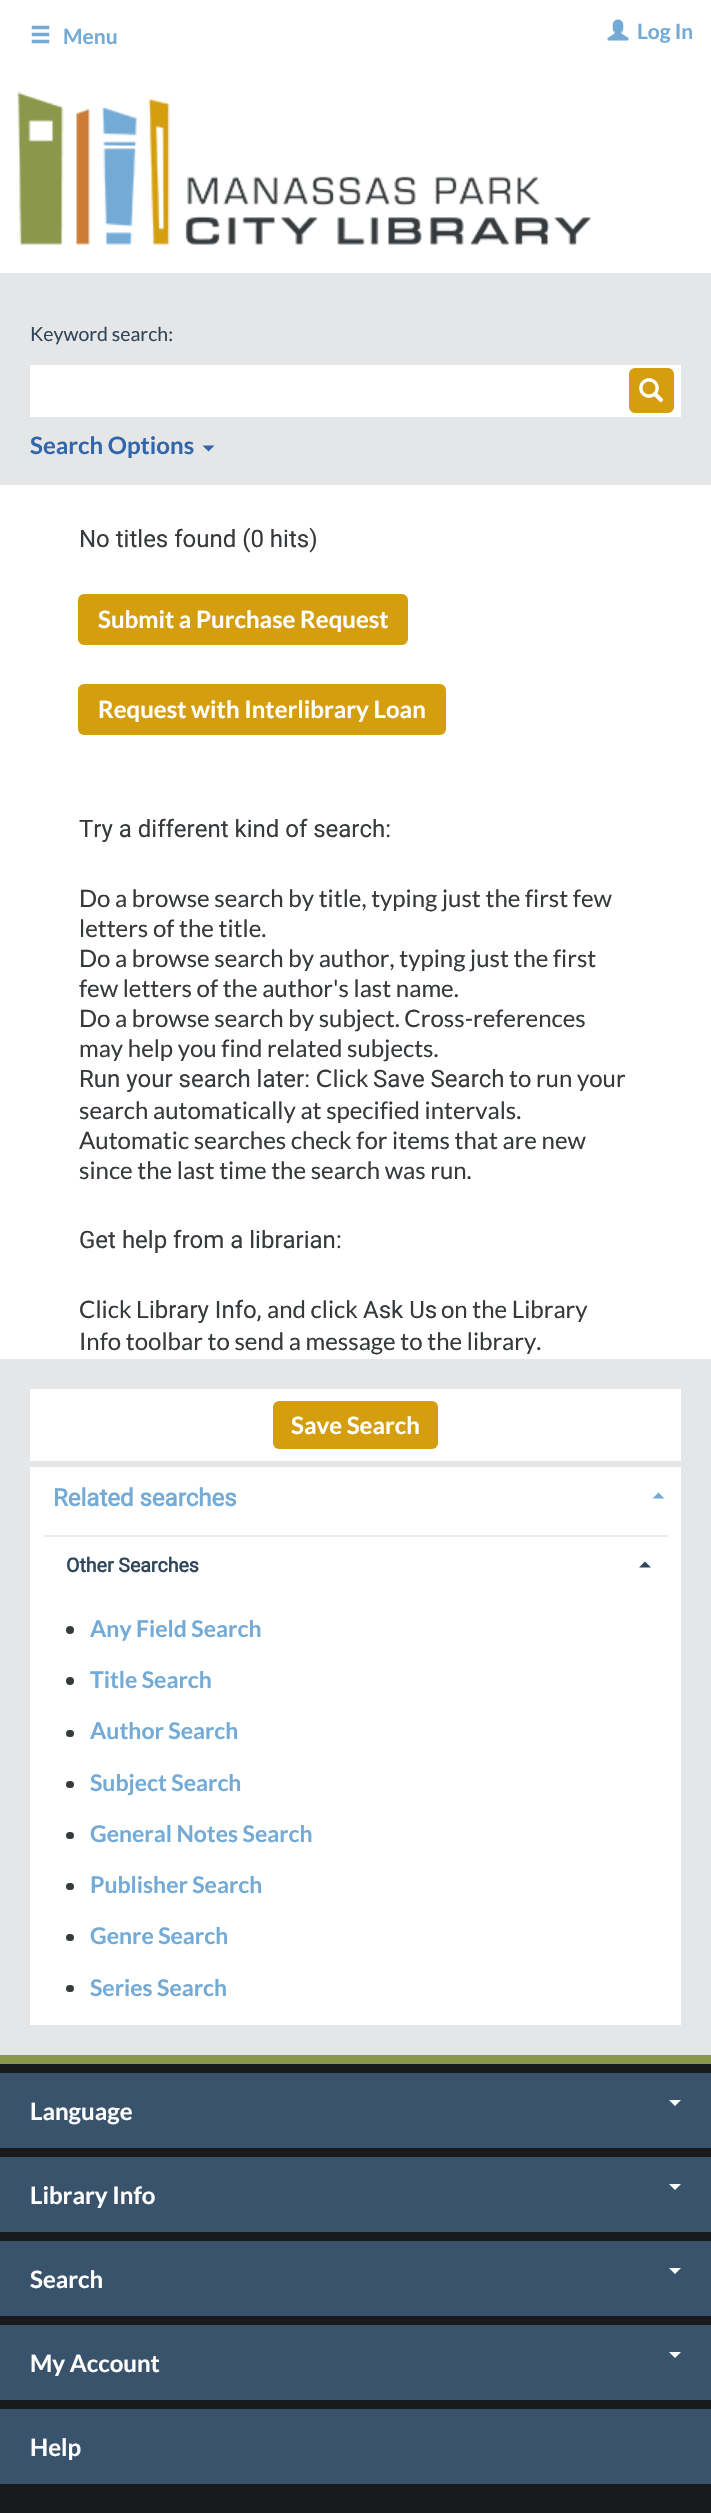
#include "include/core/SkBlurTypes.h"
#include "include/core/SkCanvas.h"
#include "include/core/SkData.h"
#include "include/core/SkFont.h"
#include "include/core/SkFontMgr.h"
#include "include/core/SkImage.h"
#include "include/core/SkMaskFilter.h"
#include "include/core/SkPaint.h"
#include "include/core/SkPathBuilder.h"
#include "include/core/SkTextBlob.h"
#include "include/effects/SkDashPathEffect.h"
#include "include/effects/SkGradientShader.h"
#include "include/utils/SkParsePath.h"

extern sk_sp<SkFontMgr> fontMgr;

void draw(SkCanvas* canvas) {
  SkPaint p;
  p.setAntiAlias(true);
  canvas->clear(SK_ColorWHITE);
  canvas->drawImageRect(SkImages::DeferredFromEncodedData(SkData::MakeFromFileName("images/1.png")), SkRect::MakeLTRB(31, 25, 50, 44), SkSamplingOptions());
  canvas->drawImageRect(SkImages::DeferredFromEncodedData(SkData::MakeFromFileName("images/2.png")), SkRect::MakeLTRB(607, 19, 629, 41), SkSamplingOptions());
  canvas->drawImageRect(SkImages::DeferredFromEncodedData(SkData::MakeFromFileName("images/3.png")), SkRect::MakeLTRB(17, 91, 592, 245), SkSamplingOptions());
  p.setColor(SkColorSetRGB(229, 230, 231));
  canvas->drawRect(SkRect::MakeLTRB(0, 1359, 711, 2055), p);
  canvas->drawRect(SkRect::MakeLTRB(0, 273, 711, 485), p);
  p.setColor(SK_ColorWHITE);
  canvas->drawRect(SkRect::MakeLTRB(30, 365, 681, 417), p);
  p.setColor(SkColorSetRGB(212, 158, 15));
  canvas->drawRoundRect(SkRect::MakeLTRB(630, 369, 673, 412), 5, 5, p);
  p.setStyle(SkPaint::kStroke_Style);
  p.setStrokeWidth(2);
  canvas->drawRoundRect(SkRect::MakeLTRB(630, 369, 673, 412), 5, 5, p);
  canvas->drawImageRect(SkImages::DeferredFromEncodedData(SkData::MakeFromFileName("images/4.png")), SkRect::MakeLTRB(639, 378, 664, 403), SkSamplingOptions());
  p.setStyle(SkPaint::kFill_Style);
  p.setColor(SkColorSetRGB(49, 102, 170));
  canvas->drawPath(SkPathBuilder().moveTo(202.5f, 445.5f).lineTo(214.5f, 445.5f).lineTo(208.5f, 451.5f).close().detach(), p);
  p.setColor(SkColorSetRGB(212, 158, 15));
  canvas->drawRoundRect(SkRect::MakeLTRB(79, 595, 407, 644), 5, 5, p);
  p.setStyle(SkPaint::kStroke_Style);
  canvas->drawRoundRect(SkRect::MakeLTRB(79, 595, 407, 644), 5, 5, p);
  p.setStyle(SkPaint::kFill_Style);
  canvas->drawRoundRect(SkRect::MakeLTRB(79, 685, 445, 734), 5, 5, p);
  p.setStyle(SkPaint::kStroke_Style);
  canvas->drawRoundRect(SkRect::MakeLTRB(79, 685, 445, 734), 5, 5, p);
  p.setStyle(SkPaint::kFill_Style);
  p.setColor(SK_ColorWHITE);
  canvas->drawRect(SkRect::MakeLTRB(30, 1389, 681, 1461), p);
  p.setColor(SkColorSetRGB(212, 158, 15));
  canvas->drawRoundRect(SkRect::MakeLTRB(273, 1401, 438, 1449), 6, 6, p);
  p.setColor(SK_ColorWHITE);
  canvas->drawRect(SkRect::MakeLTRB(30, 1467, 681, 2025), p);
  p.setColor(SkColorSetRGB(116, 171, 214));
  canvas->drawPath(SkPathBuilder().moveTo(664.5f, 1498.5f).lineTo(652.5f, 1498.5f).lineTo(658.5f, 1492.5f).close().detach(), p);
  p.setColor(SkColorSetRGB(229, 235, 241));
  canvas->drawRect(SkRect::MakeLTRB(44, 1535, 668, 1537), p);
  p.setColor(SkColorSetRGB(48, 70, 91));
  canvas->drawPath(SkPathBuilder().moveTo(651, 1567.5f).lineTo(639, 1567.5f).lineTo(645, 1561.5f).close().detach(), p);
  p.setColor(SkColorSetRGB(55, 58, 60));
  canvas->drawCircle(70, 1630, 4, p);
  canvas->drawCircle(70, 1681, 4, p);
  canvas->drawRoundRect(SkRect::MakeLTRB(66, 1730, 74, 1737), 3.5f, 3.5f, p);
  canvas->drawRoundRect(SkRect::MakeLTRB(66, 1781, 74, 1788), 3.5f, 3.5f, p);
  canvas->drawRoundRect(SkRect::MakeLTRB(66, 1832, 74, 1839), 3.5f, 3.5f, p);
  canvas->drawRoundRect(SkRect::MakeLTRB(66, 1883, 74, 1890), 3.5f, 3.5f, p);
  canvas->drawRoundRect(SkRect::MakeLTRB(66, 1934, 74, 1941), 3.5f, 3.5f, p);
  canvas->drawRoundRect(SkRect::MakeLTRB(66, 1985, 74, 1992), 3.5f, 3.5f, p);
  p.setColor(SkColorSetRGB(25, 26, 27));
  canvas->drawRect(SkRect::MakeLTRB(0, 2064, 711, 2409), p);
  p.setColor(SkColorSetRGB(139, 151, 75));
  canvas->drawRect(SkRect::MakeLTRB(0, 2055, 711, 2064), p);
  p.setColor(SkColorSetRGB(57, 83, 108));
  canvas->drawRect(SkRect::MakeLTRB(0, 2073, 711, 2148), p);
  p.setColor(SK_ColorWHITE);
  canvas->drawPath(SkPathBuilder().moveTo(669, 2100).lineTo(681, 2100).lineTo(675, 2106).close().detach(), p);
  p.setColor(SkColorSetRGB(57, 83, 108));
  canvas->drawRect(SkRect::MakeLTRB(0, 2157, 711, 2232), p);
  p.setColor(SK_ColorWHITE);
  canvas->drawPath(SkPathBuilder().moveTo(669, 2184).lineTo(681, 2184).lineTo(675, 2190).close().detach(), p);
  p.setColor(SkColorSetRGB(57, 83, 108));
  canvas->drawRect(SkRect::MakeLTRB(0, 2241, 711, 2316), p);
  p.setColor(SK_ColorWHITE);
  canvas->drawPath(SkPathBuilder().moveTo(669, 2268).lineTo(681, 2268).lineTo(675, 2274).close().detach(), p);
  p.setColor(SkColorSetRGB(57, 83, 108));
  canvas->drawRect(SkRect::MakeLTRB(0, 2325, 711, 2400), p);
  p.setColor(SK_ColorWHITE);
  canvas->drawPath(SkPathBuilder().moveTo(669, 2352).lineTo(681, 2352).lineTo(675, 2358).close().detach(), p);
  p.setColor(SkColorSetRGB(57, 83, 108));
  canvas->drawRect(SkRect::MakeLTRB(0, 2409, 711, 2484), p);
  p.setColor(SkColorSetRGB(25, 26, 27));
  canvas->drawRect(SkRect::MakeLTRB(0, 2484, 711, 2513), p);
  SkFont font1(fontMgr->matchFamilyStyle("Lato", SkFontStyle::Bold()), 21);
  font1.setSubpixel(true);
  p.setColor(SkColorSetRGB(116, 171, 214));
  canvas->drawString("Menu", 63, 44, font1, p);
  canvas->drawString("Log In", 637, 39, font1, p);
  SkFont font2(fontMgr->matchFamilyStyle("Lato", SkFontStyle::Normal()), 19.5f);
  font2.setSubpixel(true);
  p.setColor(SkColorSetRGB(48, 70, 91));
  canvas->drawString("Keyword search:", 30, 341, font2, p);
  SkFont font3(fontMgr->matchFamilyStyle("Lato", SkFontStyle::Bold()), 24);
  font3.setSubpixel(true);
  p.setColor(SkColorSetRGB(49, 102, 170));
  canvas->drawString("Search Options", 30, 454, font3, p);
  SkFont font4(fontMgr->matchFamilyStyle("Roboto", SkFontStyle::Normal()), 24);
  font4.setSubpixel(true);
  p.setColor(SkColorSetRGB(55, 58, 60));
  canvas->drawString("No titles found (0 hits)", 79, 547, font4, p);
  p.setColor(SK_ColorWHITE);
  canvas->drawString("Submit a Purchase Request", 98, 628, font3, p);
  canvas->drawString("Request with Interlibrary Loan", 98, 718, font3, p);
  p.setColor(SkColorSetRGB(55, 58, 60));
  canvas->drawString("Try a different kind of search:", 79, 837, font4, p);
  SkFont font5(fontMgr->matchFamilyStyle("Lato", SkFontStyle::Normal()), 24);
  font5.setSubpixel(true);
  canvas->drawString("Do a browse search by title, typing just the first few", 79, 907, font5, p);
  canvas->drawString("letters of the title.", 79, 937, font5, p);
  canvas->drawString("Do a browse search by author, typing just the first", 79, 967, font5, p);
  canvas->drawString("few letters of the author's last name.", 79, 997, font5, p);
  canvas->drawString("Do a browse search by subject. Cross-references", 79, 1027, font5, p);
  canvas->drawString("may help you find related subjects.", 79, 1057, font5, p);
  canvas->drawString("Run your search later:", 79, 1087, font4, p);
  canvas->drawString("Click", 316, 1087, font5, p);
  canvas->drawString("Save Search", 373, 1087, font4, p);
  canvas->drawString("to run your", 509, 1087, font5, p);
  canvas->drawString("search automatically at specified intervals.", 79, 1119, font5, p);
  canvas->drawString("Automatic searches check for items that are new", 79, 1149, font5, p);
  canvas->drawString("since the last time the search was run.", 79, 1179, font5, p);
  canvas->drawString("Get help from a librarian:", 79, 1248, font4, p);
  canvas->drawString("Click", 79, 1318, font5, p);
  canvas->drawString("Library Info,", 136, 1318, font4, p);
  canvas->drawString("and click", 267, 1318, font5, p);
  canvas->drawString("Ask Us", 363, 1318, font4, p);
  canvas->drawString("on the Library", 441, 1318, font5, p);
  canvas->drawString("Info toolbar to send a message to the library.", 79, 1350, font5, p);
  p.setColor(SK_ColorWHITE);
  canvas->drawString("Save Search", 291, 1434, font3, p);
  SkFont font6(fontMgr->matchFamilyStyle("Roboto", SkFontStyle::Bold()), 24);
  font6.setSubpixel(true);
  p.setColor(SkColorSetRGB(116, 171, 214));
  canvas->drawString("Related searches", 53, 1506, font6, p);
  SkFont font7(fontMgr->matchFamilyStyle("Roboto", SkFontStyle::Bold()), 19.5f);
  font7.setSubpixel(true);
  p.setColor(SkColorSetRGB(48, 70, 91));
  canvas->drawString("Other Searches", 66, 1572, font7, p);
  SkFont font8(fontMgr->matchFamilyStyle("Lato", SkFontStyle::Bold()), 23);
  font8.setSubpixel(true);
  p.setColor(SkColorSetRGB(116, 171, 214));
  canvas->drawString("Any Field Search", 90, 1637, font8, p);
  canvas->drawString("Title Search", 90, 1688, font8, p);
  canvas->drawString("Author Search", 90, 1739, font8, p);
  canvas->drawString("Subject Search", 90, 1791, font8, p);
  canvas->drawString("General Notes Search", 90, 1842, font8, p);
  canvas->drawString("Publisher Search", 90, 1893, font8, p);
  canvas->drawString("Genre Search", 90, 1944, font8, p);
  canvas->drawString("Series Search", 90, 1996, font8, p);
  p.setColor(SK_ColorWHITE);
  canvas->drawString("Language", 30, 2120, font3, p);
  canvas->drawString("Library Info", 30, 2204, font3, p);
  canvas->drawString("Search", 30, 2288, font3, p);
  canvas->drawString("My Account", 30, 2372, font3, p);
  canvas->drawString("Help", 30, 2456, font3, p);
}
